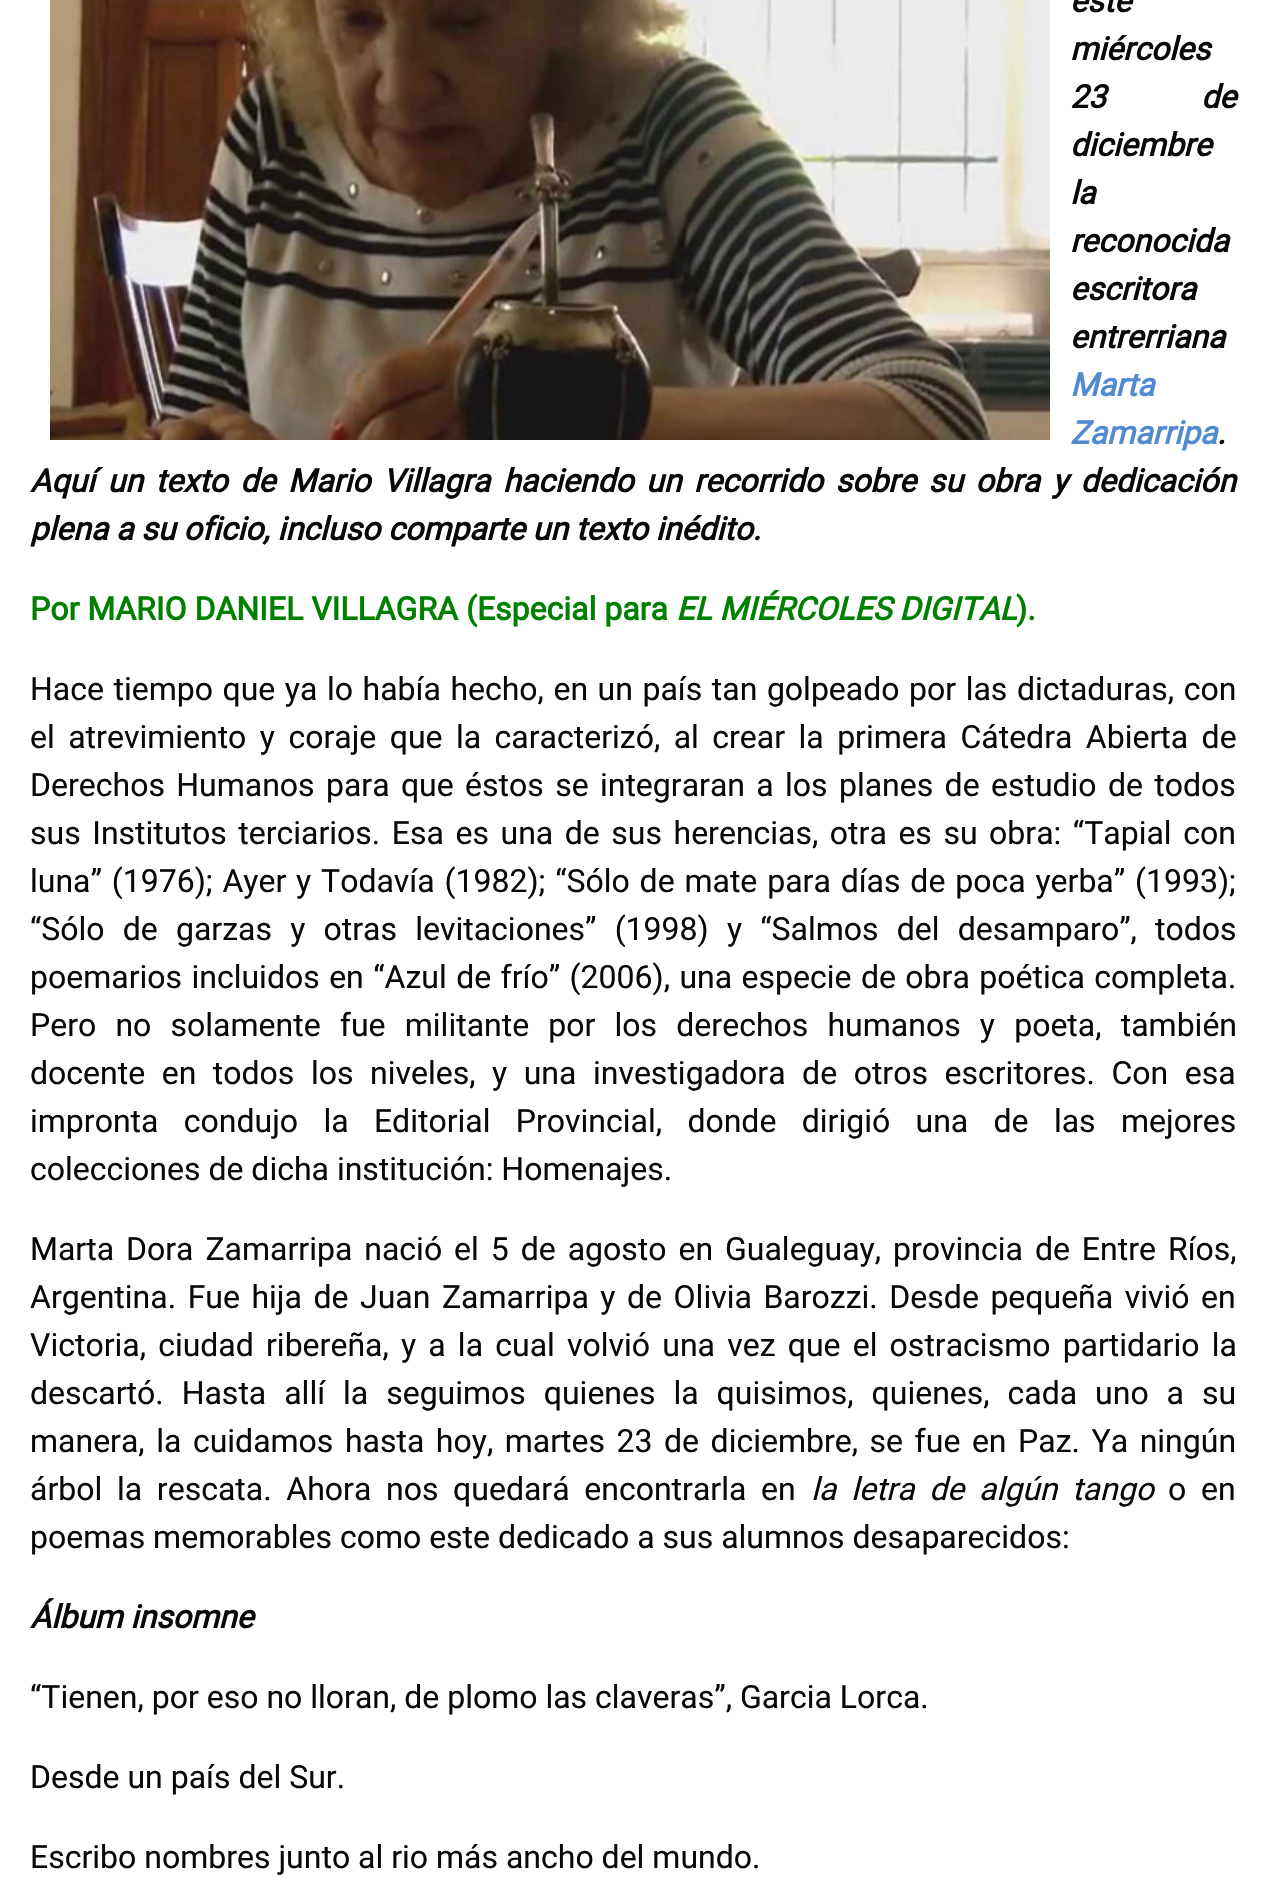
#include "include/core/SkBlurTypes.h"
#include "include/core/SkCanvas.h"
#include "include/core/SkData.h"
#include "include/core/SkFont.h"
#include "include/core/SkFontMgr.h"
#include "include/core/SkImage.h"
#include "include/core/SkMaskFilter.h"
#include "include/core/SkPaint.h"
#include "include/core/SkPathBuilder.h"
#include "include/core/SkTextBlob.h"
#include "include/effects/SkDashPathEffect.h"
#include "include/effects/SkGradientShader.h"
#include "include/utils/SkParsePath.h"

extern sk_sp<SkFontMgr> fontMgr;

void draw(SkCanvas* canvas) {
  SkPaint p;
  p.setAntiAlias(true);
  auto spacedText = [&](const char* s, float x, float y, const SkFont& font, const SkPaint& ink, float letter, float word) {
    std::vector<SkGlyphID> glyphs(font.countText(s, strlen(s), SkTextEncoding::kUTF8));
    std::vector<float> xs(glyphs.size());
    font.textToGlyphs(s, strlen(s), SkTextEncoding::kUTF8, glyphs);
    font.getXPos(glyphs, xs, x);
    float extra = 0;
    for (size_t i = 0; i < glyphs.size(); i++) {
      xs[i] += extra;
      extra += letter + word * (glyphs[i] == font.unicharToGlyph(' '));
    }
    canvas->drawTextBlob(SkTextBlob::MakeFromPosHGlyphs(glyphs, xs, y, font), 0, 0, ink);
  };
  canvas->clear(SK_ColorWHITE);
  canvas->drawImageRect(SkImages::DeferredFromEncodedData(SkData::MakeFromFileName("images/1.png")), SkRect::MakeLTRB(50, 0, 1050, 440), SkSamplingOptions());
  SkFont font1(fontMgr->matchFamilyStyle("Roboto", SkFontStyle::BoldItalic()), 32);
  font1.setSubpixel(true);
  p.setColor(SkColorSetRGB(8, 8, 8));
  canvas->drawString("este", 1070, 12, font1, p);
  canvas->drawString("miércoles", 1070, 60, font1, p);
  spacedText("23 de", 1070, 108, font1, p, 0, 87);
  canvas->drawString("diciembre", 1070, 156, font1, p);
  canvas->drawString("la", 1070, 204, font1, p);
  canvas->drawString("reconocida", 1070, 252, font1, p);
  canvas->drawString("escritora", 1070, 300, font1, p);
  canvas->drawString("entrerriana", 1070, 348, font1, p);
  p.setColor(SkColorSetRGB(81, 138, 209));
  canvas->drawString("Marta", 1070, 396, font1, p);
  canvas->drawString("Zamarripa", 1070, 444, font1, p);
  p.setColor(SkColorSetRGB(8, 8, 8));
  canvas->drawString(".", 1217, 444, font1, p);
  spacedText("Aquí un texto de Mario Villagra haciendo un recorrido sobre su obra y dedicación", 30, 492, font1, p, 0, 4.75f);
  canvas->drawString("plena a su oficio, incluso comparte un texto inédito.", 30, 540, font1, p);
  SkFont font2(fontMgr->matchFamilyStyle("Roboto", SkFontStyle::Bold()), 32);
  font2.setSubpixel(true);
  p.setColor(SkColorSetRGB(0, 128, 0));
  canvas->drawString("Por MARIO DANIEL VILLAGRA (Especial para", 30, 620, font2, p);
  canvas->drawString("EL MIÉRCOLES DIGITAL", 676, 620, font1, p);
  canvas->drawString(").", 1016, 620, font2, p);
  SkFont font3(fontMgr->matchFamilyStyle("Roboto", SkFontStyle::Normal()), 32);
  font3.setSubpixel(true);
  p.setColor(SkColorSetRGB(8, 8, 8));
  spacedText("Hace tiempo que ya lo había hecho, en un país tan golpeado por las dictaduras, con", 30, 700, font3, p, 0, 1.6f);
  spacedText("el atrevimiento y coraje que la caracterizó, al crear la primera Cátedra Abierta de", 30, 748, font3, p, 0, 5.5f);
  spacedText("Derechos Humanos para que éstos se integraran a los planes de estudio de todos", 30, 796, font3, p, 0, 3.4f);
  spacedText("sus Institutos terciarios. Esa es una de sus herencias, otra es su obra: “Tapial con", 30, 844, font3, p, 0, 3.6f);
  spacedText("luna” (1976); Ayer y Todavía (1982); “Sólo de mate para días de poca yerba” (1993);", 30, 892, font3, p, 0, 1.9f);
  spacedText("“Sólo de garzas y otras levitaciones” (1998) y “Salmos del desamparo”, todos", 30, 940, font3, p, 0, 10.25f);
  spacedText("poemarios incluidos en “Azul de frío” (2006), una especie de obra poética completa.", 30, 988, font3, p, 0, 1.5f);
  spacedText("Pero no solamente fue militante por los derechos humanos y poeta, también", 30, 1036, font3, p, 0, 11.25f);
  spacedText("docente en todos los niveles, y una investigadora de otros escritores. Con esa", 30, 1084, font3, p, 0, 8.6f);
  spacedText("impronta condujo la Editorial Provincial, donde dirigió una de las mejores", 30, 1132, font3, p, 0, 17.4f);
  canvas->drawString("colecciones de dicha institución: Homenajes.", 30, 1180, font3, p);
  spacedText("Marta Dora Zamarripa nació el 5 de agosto en Gualeguay, provincia de Entre Ríos,", 30, 1260, font3, p, 0, 4);
  spacedText("Argentina. Fue hija de Juan Zamarripa y de Olivia Barozzi. Desde pequeña vivió en", 30, 1308, font3, p, 0, 3.6f);
  spacedText("Victoria, ciudad ribereña, y a la cual volvió una vez que el ostracismo partidario la", 30, 1356, font3, p, 0, 4.25f);
  spacedText("descartó. Hasta allí la seguimos quienes la quisimos, quienes, cada uno a su", 30, 1404, font3, p, 0, 10);
  spacedText("manera, la cuidamos hasta hoy, martes 23 de diciembre, se fue en Paz. Ya ningún", 30, 1452, font3, p, 0, 3.6f);
  spacedText("árbol la rescata. Ahora nos quedará encontrarla en", 30, 1500, font3, p, 0, 6.75f);
  SkFont font4(fontMgr->matchFamilyStyle("Roboto", SkFontStyle::Italic()), 32);
  font4.setSubpixel(true);
  spacedText("la letra de algún tango", 811, 1500, font4, p, 0, 6.75f);
  spacedText("o en", 1168, 1500, font3, p, 0, 6.75f);
  canvas->drawString("poemas memorables como este dedicado a sus alumnos desaparecidos:", 30, 1548, font3, p);
  canvas->drawString("Álbum insomne", 30, 1628, font1, p);
  canvas->drawString("“Tienen, por eso no lloran, de plomo las claveras”, Garcia Lorca.", 30, 1708, font3, p);
  canvas->drawString("Desde un país del Sur.", 30, 1788, font3, p);
  canvas->drawString("Escribo nombres junto al rio más ancho del mundo.", 30, 1868, font3, p);
}
